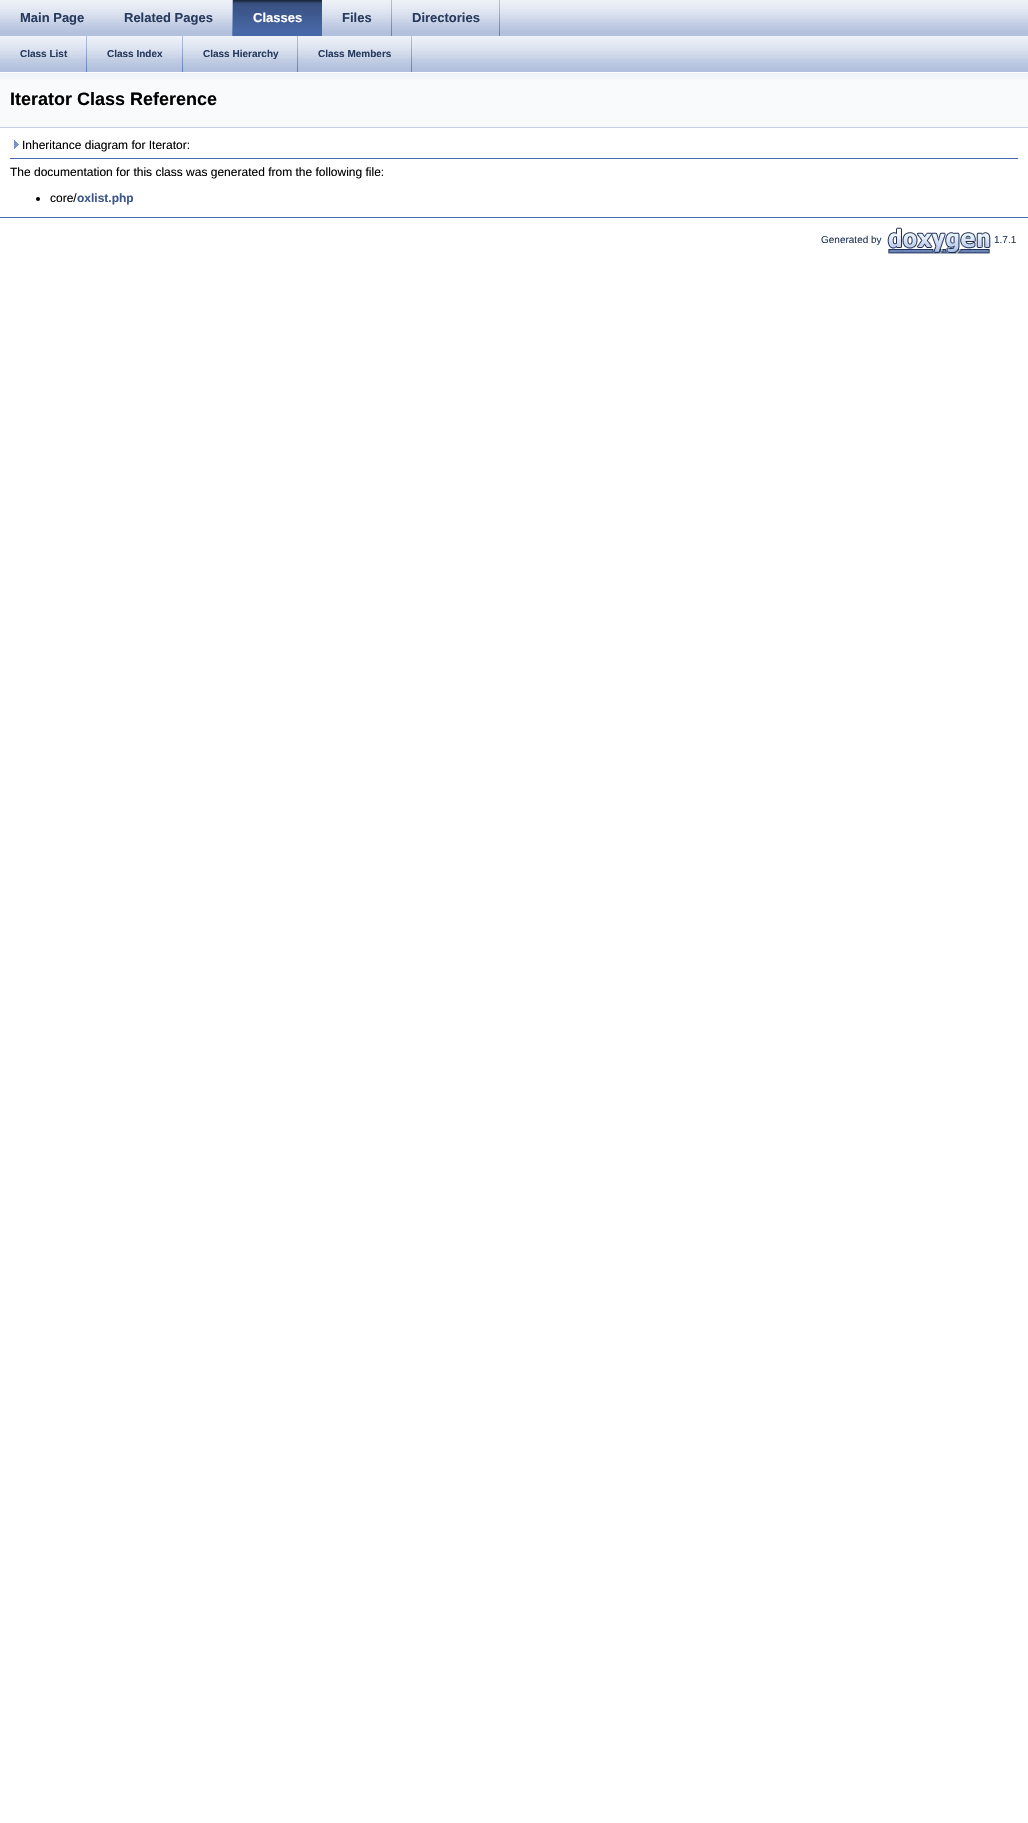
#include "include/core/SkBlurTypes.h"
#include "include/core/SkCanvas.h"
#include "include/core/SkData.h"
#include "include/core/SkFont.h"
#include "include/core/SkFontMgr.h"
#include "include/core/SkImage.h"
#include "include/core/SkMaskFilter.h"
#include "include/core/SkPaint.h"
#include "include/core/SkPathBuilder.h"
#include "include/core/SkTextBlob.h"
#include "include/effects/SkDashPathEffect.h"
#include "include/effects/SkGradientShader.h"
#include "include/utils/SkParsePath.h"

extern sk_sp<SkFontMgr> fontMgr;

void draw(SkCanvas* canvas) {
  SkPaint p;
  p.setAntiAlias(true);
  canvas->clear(SK_ColorWHITE);
  canvas->drawImageRect(SkImages::DeferredFromEncodedData(SkData::MakeFromFileName("images/1.png")), SkRect::MakeLTRB(0, 0, 1028, 36), SkSamplingOptions());
  canvas->drawImageRect(SkImages::DeferredFromEncodedData(SkData::MakeFromFileName("images/2.png")), SkRect::MakeLTRB(232, 0, 233, 36), SkSamplingOptions());
  canvas->drawImageRect(SkImages::DeferredFromEncodedData(SkData::MakeFromFileName("images/3.png")), SkRect::MakeLTRB(233, 0, 322, 36), SkSamplingOptions());
  canvas->drawImageRect(SkImages::DeferredFromEncodedData(SkData::MakeFromFileName("images/2.png")), SkRect::MakeLTRB(391, 0, 392, 36), SkSamplingOptions());
  canvas->drawImageRect(SkImages::DeferredFromEncodedData(SkData::MakeFromFileName("images/2.png")), SkRect::MakeLTRB(499, 0, 500, 36), SkSamplingOptions());
  canvas->drawImageRect(SkImages::DeferredFromEncodedData(SkData::MakeFromFileName("images/1.png")), SkRect::MakeLTRB(0, 36, 1028, 72), SkSamplingOptions());
  canvas->drawImageRect(SkImages::DeferredFromEncodedData(SkData::MakeFromFileName("images/2.png")), SkRect::MakeLTRB(86, 36, 87, 72), SkSamplingOptions());
  canvas->drawImageRect(SkImages::DeferredFromEncodedData(SkData::MakeFromFileName("images/2.png")), SkRect::MakeLTRB(182, 36, 183, 72), SkSamplingOptions());
  canvas->drawImageRect(SkImages::DeferredFromEncodedData(SkData::MakeFromFileName("images/2.png")), SkRect::MakeLTRB(297, 36, 298, 72), SkSamplingOptions());
  canvas->drawImageRect(SkImages::DeferredFromEncodedData(SkData::MakeFromFileName("images/2.png")), SkRect::MakeLTRB(411, 36, 412, 72), SkSamplingOptions());
  p.setColor(SkColorSetRGB(249, 250, 252));
  canvas->drawRect(SkRect::MakeLTRB(0, 80, 1028, 127), p);
  canvas->drawImageRect(SkImages::DeferredFromEncodedData(SkData::MakeFromFileName("images/4.png")), SkRect::MakeLTRB(0, 72, 1028, 80), SkSamplingOptions());
  p.setColor(SkColorSetRGB(196, 207, 229));
  canvas->drawRect(SkRect::MakeLTRB(0, 127, 1028, 128), p);
  canvas->drawImageRect(SkImages::DeferredFromEncodedData(SkData::MakeFromFileName("images/5.png")), SkRect::MakeLTRB(14, 140, 19, 149), SkSamplingOptions());
  p.setColor(SkColorSetRGB(74, 106, 170));
  canvas->drawRect(SkRect::MakeLTRB(10, 158, 1018, 159), p);
  p.setColor(SK_ColorBLACK);
  canvas->drawCircle(38, 199, 2, p);
  p.setColor(SkColorSetRGB(74, 106, 170));
  canvas->drawRect(SkRect::MakeLTRB(0, 217, 1028, 218), p);
  canvas->drawImageRect(SkImages::DeferredFromEncodedData(SkData::MakeFromFileName("images/6.png")), SkRect::MakeLTRB(887, 227, 991, 254), SkSamplingOptions());
  SkFont font1(fontMgr->matchFamilyStyle("Liberation Sans", SkFontStyle::Bold()), 13);
  font1.setSubpixel(true);
  p.setColor(SkColorSetRGB(40, 58, 93));
  canvas->drawString("Main Page", 20, 22, font1, p);
  canvas->drawString("Related Pages", 124, 22, font1, p);
  p.setColor(SK_ColorWHITE);
  canvas->drawString("Classes", 253, 22, font1, p);
  p.setColor(SkColorSetRGB(40, 58, 93));
  canvas->drawString("Files", 342, 22, font1, p);
  canvas->drawString("Directories", 412, 22, font1, p);
  SkFont font2(fontMgr->matchFamilyStyle("Liberation Sans", SkFontStyle::Bold()), 10);
  font2.setSubpixel(true);
  canvas->drawString("Class List", 20, 57, font2, p);
  canvas->drawString("Class Index", 107, 57, font2, p);
  canvas->drawString("Class Hierarchy", 203, 57, font2, p);
  canvas->drawString("Class Members", 318, 57, font2, p);
  SkFont font3(fontMgr->matchFamilyStyle("Liberation Sans", SkFontStyle::Bold()), 18);
  font3.setSubpixel(true);
  p.setColor(SK_ColorBLACK);
  canvas->drawString("Iterator Class Reference", 10, 105, font3, p);
  SkFont font4(fontMgr->matchFamilyStyle("Liberation Sans", SkFontStyle::Normal()), 12);
  font4.setSubpixel(true);
  canvas->drawString("Inheritance diagram for Iterator:", 22, 149, font4, p);
  canvas->drawString("The documentation for this class was generated from the following file:", 10, 176, font4, p);
  canvas->drawString("core/", 50, 202, font4, p);
  SkFont font5(fontMgr->matchFamilyStyle("Liberation Sans", SkFontStyle::Bold()), 12);
  font5.setSubpixel(true);
  p.setColor(SkColorSetRGB(61, 87, 140));
  canvas->drawString("oxlist.php", 77, 202, font5, p);
  SkFont font6(fontMgr->matchFamilyStyle("Liberation Sans", SkFontStyle::Normal()), 10);
  font6.setSubpixel(true);
  p.setColor(SkColorSetRGB(40, 58, 93));
  canvas->drawString("Generated by", 821, 243, font6, p);
  canvas->drawString("1.7.1", 994, 243, font6, p);
}
